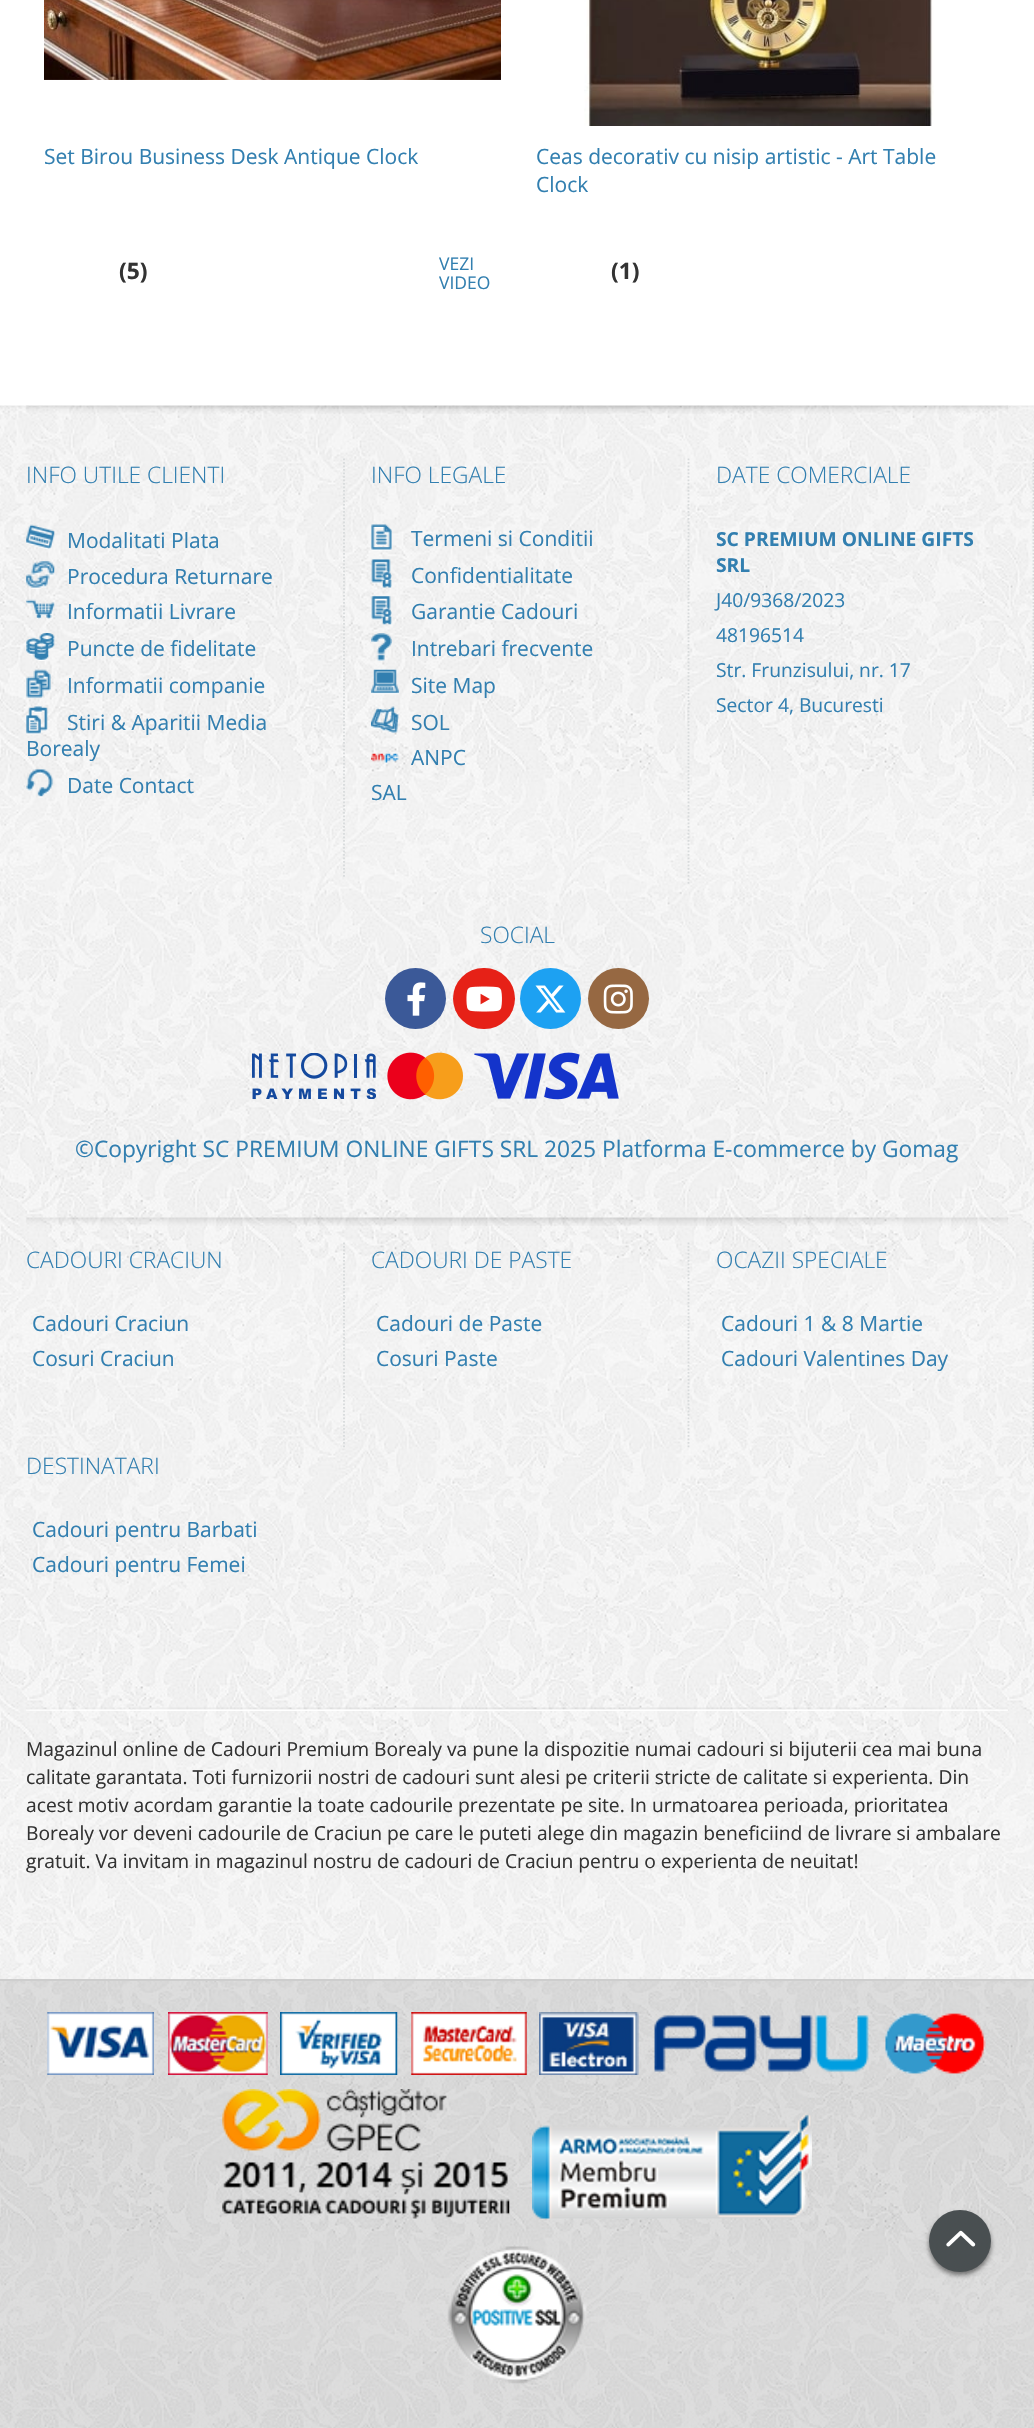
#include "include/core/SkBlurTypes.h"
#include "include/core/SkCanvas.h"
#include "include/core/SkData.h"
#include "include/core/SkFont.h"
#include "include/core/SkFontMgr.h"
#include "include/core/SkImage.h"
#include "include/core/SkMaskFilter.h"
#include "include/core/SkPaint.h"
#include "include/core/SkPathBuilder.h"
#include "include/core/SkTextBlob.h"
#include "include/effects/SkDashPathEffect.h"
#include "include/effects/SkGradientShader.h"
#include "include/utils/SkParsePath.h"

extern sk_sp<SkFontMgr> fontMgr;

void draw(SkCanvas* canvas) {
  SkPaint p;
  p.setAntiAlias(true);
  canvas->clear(SK_ColorWHITE);
  canvas->drawImageRect(SkImages::DeferredFromEncodedData(SkData::MakeFromFileName("images/1.png")), SkRect::MakeLTRB(44, 0, 501, 80), SkSamplingOptions());
  canvas->drawImageRect(SkImages::DeferredFromEncodedData(SkData::MakeFromFileName("images/2.png")), SkRect::MakeLTRB(584, 0, 934, 126), SkSamplingOptions());
  canvas->drawImageRect(SkImages::DeferredFromEncodedData(SkData::MakeFromFileName("images/4.png")), SkRect::MakeLTRB(0, 405, 1034, 2428), SkSamplingOptions());
  canvas->drawImageRect(SkImages::DeferredFromEncodedData(SkData::MakeFromFileName("images/5.png")), SkRect::MakeLTRB(0, 405, 1034, 409), SkSamplingOptions());
  canvas->drawImageRect(SkImages::DeferredFromEncodedData(SkData::MakeFromFileName("images/3.png")), SkRect::MakeLTRB(26, 405, 1008, 414), SkSamplingOptions());
  p.setStyle(SkPaint::kStroke_Style);
  p.setStrokeWidth(1.8f);
  p.setColor(SkColorSetRGB(216, 219, 220));
  p.setPathEffect(SkDashPathEffect::Make({{1.75f, 1.75f}}, 0));
  canvas->drawPath(SkPathBuilder().moveTo(344, 458.5f).lineTo(344, 877).detach(), p);
  p.setPathEffect(nullptr);
  canvas->drawImageRect(SkImages::DeferredFromEncodedData(SkData::MakeFromFileName("images/6.png")), SkRect::MakeLTRB(26, 524, 55, 549), SkSamplingOptions());
  canvas->drawImageRect(SkImages::DeferredFromEncodedData(SkData::MakeFromFileName("images/7.png")), SkRect::MakeLTRB(26, 561, 55, 589), SkSamplingOptions());
  canvas->drawImageRect(SkImages::DeferredFromEncodedData(SkData::MakeFromFileName("images/8.png")), SkRect::MakeLTRB(26, 599, 55, 619), SkSamplingOptions());
  canvas->drawImageRect(SkImages::DeferredFromEncodedData(SkData::MakeFromFileName("images/9.png")), SkRect::MakeLTRB(26, 633, 55, 661), SkSamplingOptions());
  canvas->drawImageRect(SkImages::DeferredFromEncodedData(SkData::MakeFromFileName("images/10.png")), SkRect::MakeLTRB(26, 669, 51, 698), SkSamplingOptions());
  canvas->drawImageRect(SkImages::DeferredFromEncodedData(SkData::MakeFromFileName("images/11.png")), SkRect::MakeLTRB(26, 706, 48, 735), SkSamplingOptions());
  canvas->drawImageRect(SkImages::DeferredFromEncodedData(SkData::MakeFromFileName("images/12.png")), SkRect::MakeLTRB(26, 769, 54, 798), SkSamplingOptions());
  p.setPathEffect(SkDashPathEffect::Make({{1.75f, 1.75f}}, 0));
  canvas->drawPath(SkPathBuilder().moveTo(688.5f, 458.5f).lineTo(688.5f, 884).detach(), p);
  p.setPathEffect(nullptr);
  canvas->drawImageRect(SkImages::DeferredFromEncodedData(SkData::MakeFromFileName("images/13.png")), SkRect::MakeLTRB(371, 524, 392, 551), SkSamplingOptions());
  canvas->drawImageRect(SkImages::DeferredFromEncodedData(SkData::MakeFromFileName("images/14.png")), SkRect::MakeLTRB(371, 559, 392, 588), SkSamplingOptions());
  canvas->drawImageRect(SkImages::DeferredFromEncodedData(SkData::MakeFromFileName("images/15.png")), SkRect::MakeLTRB(371, 596, 392, 625), SkSamplingOptions());
  canvas->drawImageRect(SkImages::DeferredFromEncodedData(SkData::MakeFromFileName("images/16.png")), SkRect::MakeLTRB(371, 633, 392, 661), SkSamplingOptions());
  canvas->drawImageRect(SkImages::DeferredFromEncodedData(SkData::MakeFromFileName("images/17.png")), SkRect::MakeLTRB(371, 669, 399, 695), SkSamplingOptions());
  canvas->drawImageRect(SkImages::DeferredFromEncodedData(SkData::MakeFromFileName("images/18.png")), SkRect::MakeLTRB(371, 706, 399, 733), SkSamplingOptions());
  canvas->drawImageRect(SkImages::DeferredFromEncodedData(SkData::MakeFromFileName("images/19.png")), SkRect::MakeLTRB(371, 753, 399, 763), SkSamplingOptions());
  p.setPathEffect(SkDashPathEffect::Make({{1.75f, 1.75f}}, 0));
  canvas->drawPath(SkPathBuilder().moveTo(1033.5f, 458.5f).lineTo(1033.5f, 796).detach(), p);
  p.setPathEffect(nullptr);
  p.setStyle(SkPaint::kFill_Style);
  p.setColor(SkColorSetRGB(59, 89, 152));
  canvas->drawCircle(415.5f, 998.5f, 30.5f, p);
  canvas->drawImageRect(SkImages::DeferredFromEncodedData(SkData::MakeFromFileName("images/20.png")), SkRect::MakeLTRB(407, 982, 426, 1016), SkSamplingOptions());
  p.setColor(SkColorSetRGB(230, 33, 23));
  canvas->drawRoundRect(SkRect::MakeLTRB(453, 968, 515, 1029), 30.5f, 30.5f, p);
  canvas->drawImageRect(SkImages::DeferredFromEncodedData(SkData::MakeFromFileName("images/21.png")), SkRect::MakeLTRB(466, 986, 502, 1012), SkSamplingOptions());
  p.setColor(SkColorSetRGB(29, 161, 242));
  canvas->drawCircle(550.5f, 998.5f, 30.5f, p);
  canvas->drawImageRect(SkImages::DeferredFromEncodedData(SkData::MakeFromFileName("images/22.png")), SkRect::MakeLTRB(535, 985, 566, 1013), SkSamplingOptions());
  p.setColor(SkColorSetRGB(150, 104, 66));
  canvas->drawCircle(618.5f, 998.5f, 30.5f, p);
  canvas->drawImageRect(SkImages::DeferredFromEncodedData(SkData::MakeFromFileName("images/23.png")), SkRect::MakeLTRB(603, 984, 633, 1014), SkSamplingOptions());
  canvas->drawImageRect(SkImages::DeferredFromEncodedData(SkData::MakeFromFileName("images/24.png")), SkRect::MakeLTRB(252, 1052, 619, 1100), SkSamplingOptions());
  canvas->drawImageRect(SkImages::DeferredFromEncodedData(SkData::MakeFromFileName("images/25.png")), SkRect::MakeLTRB(26, 1217, 1008, 1226), SkSamplingOptions());
  p.setStyle(SkPaint::kStroke_Style);
  p.setColor(SkColorSetRGB(216, 219, 220));
  p.setPathEffect(SkDashPathEffect::Make({{1.75f, 1.75f}}, 0));
  canvas->drawPath(SkPathBuilder().moveTo(344, 1242.5f).lineTo(344, 1449).detach(), p);
  p.setPathEffect(nullptr);
  p.setPathEffect(SkDashPathEffect::Make({{1.75f, 1.75f}}, 0));
  canvas->drawPath(SkPathBuilder().moveTo(688.5f, 1242.5f).lineTo(688.5f, 1449).detach(), p);
  p.setPathEffect(nullptr);
  p.setPathEffect(SkDashPathEffect::Make({{1.75f, 1.75f}}, 0));
  canvas->drawPath(SkPathBuilder().moveTo(1033.5f, 1242.5f).lineTo(1033.5f, 1449).detach(), p);
  p.setPathEffect(nullptr);
  canvas->drawImageRect(SkImages::DeferredFromEncodedData(SkData::MakeFromFileName("images/26.png")), SkRect::MakeLTRB(26, 1707, 1008, 1711), SkSamplingOptions());
  p.setStyle(SkPaint::kFill_Style);
  p.setColor(SkColorSetARGB(26, 0, 0, 0));
  canvas->drawRect(SkRect::MakeLTRB(0, 1981, 1034, 2428), p);
  p.setColor(SkColorSetRGB(206, 206, 206));
  canvas->drawRect(SkRect::MakeLTRB(0, 1979, 1034, 1981), p);
  canvas->drawImageRect(SkImages::DeferredFromEncodedData(SkData::MakeFromFileName("images/27.png")), SkRect::MakeLTRB(47, 2012, 154, 2075), SkSamplingOptions());
  canvas->drawImageRect(SkImages::DeferredFromEncodedData(SkData::MakeFromFileName("images/28.png")), SkRect::MakeLTRB(168, 2012, 268, 2075), SkSamplingOptions());
  canvas->drawImageRect(SkImages::DeferredFromEncodedData(SkData::MakeFromFileName("images/29.png")), SkRect::MakeLTRB(280, 2012, 398, 2075), SkSamplingOptions());
  canvas->drawImageRect(SkImages::DeferredFromEncodedData(SkData::MakeFromFileName("images/30.png")), SkRect::MakeLTRB(411, 2012, 527, 2075), SkSamplingOptions());
  canvas->drawImageRect(SkImages::DeferredFromEncodedData(SkData::MakeFromFileName("images/31.png")), SkRect::MakeLTRB(539, 2012, 639, 2075), SkSamplingOptions());
  canvas->drawImageRect(SkImages::DeferredFromEncodedData(SkData::MakeFromFileName("images/32.png")), SkRect::MakeLTRB(654, 2015, 869, 2072), SkSamplingOptions());
  canvas->drawImageRect(SkImages::DeferredFromEncodedData(SkData::MakeFromFileName("images/33.png")), SkRect::MakeLTRB(885, 2013, 986, 2074), SkSamplingOptions());
  canvas->drawImageRect(SkImages::DeferredFromEncodedData(SkData::MakeFromFileName("images/34.png")), SkRect::MakeLTRB(222, 2089, 510, 2219), SkSamplingOptions());
  canvas->drawImageRect(SkImages::DeferredFromEncodedData(SkData::MakeFromFileName("images/35.png")), SkRect::MakeLTRB(532, 2110, 812, 2219), SkSamplingOptions());
  canvas->drawImageRect(SkImages::DeferredFromEncodedData(SkData::MakeFromFileName("images/36.png")), SkRect::MakeLTRB(447, 2246, 587, 2384), SkSamplingOptions());
  p.setColor(SkColorSetARGB(128, 0, 0, 0));
  p.setMaskFilter(SkMaskFilter::MakeBlur(kNormal_SkBlurStyle, 2.5f));
  canvas->drawRoundRect(SkRect::MakeLTRB(929, 2214, 991, 2275), 30.5f, 30.5f, p);
  p.setMaskFilter(nullptr);
  p.setColor(SkColorSetRGB(73, 79, 81));
  canvas->drawCircle(960, 2241, 31, p);
  canvas->drawImageRect(SkImages::DeferredFromEncodedData(SkData::MakeFromFileName("images/37.png")), SkRect::MakeLTRB(946, 2230, 976, 2247), SkSamplingOptions());
  SkFont font1(fontMgr->matchFamilyStyle("Open Sans", SkFontStyle::Normal()), 21);
  font1.setSubpixel(true);
  p.setColor(SkColorSetRGB(50, 127, 176));
  canvas->drawString("Set Birou Business Desk Antique Clock", 44, 164, font1, p);
  SkFont font2(fontMgr->matchFamilyStyle("Open Sans", SkFontStyle::Bold()), 22.75f);
  font2.setSubpixel(true);
  p.setColor(SkColorSetRGB(51, 51, 51));
  canvas->drawString("(5)", 119, 279, font2, p);
  SkFont font3(fontMgr->matchFamilyStyle("Open Sans", SkFontStyle::Normal()), 17.5f);
  font3.setSubpixel(true);
  p.setColor(SkColorSetRGB(50, 127, 176));
  canvas->drawString("VEZI", 439, 270, font3, p);
  canvas->drawString("VIDEO", 439, 289, font3, p);
  canvas->drawString("Ceas decorativ cu nisip artistic - Art Table", 536, 164, font1, p);
  canvas->drawString("Clock", 536, 192, font1, p);
  p.setColor(SkColorSetRGB(51, 51, 51));
  canvas->drawString("(1)", 611, 279, font2, p);
  SkFont font4(fontMgr->matchFamilyStyle("Open Sans", SkFontStyle(300, SkFontStyle::kNormal_Width, SkFontStyle::kUpright_Slant)), 22.75f);
  font4.setSubpixel(true);
  p.setColor(SkColorSetRGB(50, 127, 176));
  canvas->drawString("INFO UTILE CLIENTI", 26, 483, font4, p);
  canvas->drawString("Modalitati Plata", 67, 548, font1, p);
  canvas->drawString("Procedura Returnare", 67, 584, font1, p);
  canvas->drawString("Informatii Livrare", 67, 619, font1, p);
  canvas->drawString("Puncte de fidelitate", 67, 656, font1, p);
  canvas->drawString("Informatii companie", 67, 693, font1, p);
  canvas->drawString("Stiri & Aparitii Media", 67, 730, font1, p);
  canvas->drawString("Borealy", 26, 756, font1, p);
  canvas->drawString("Date Contact", 67, 793, font1, p);
  canvas->drawString("INFO LEGALE", 371, 483, font4, p);
  canvas->drawString("Termeni si Conditii", 411, 546, font1, p);
  canvas->drawString("Confidentialitate", 411, 583, font1, p);
  canvas->drawString("Garantie Cadouri", 411, 619, font1, p);
  canvas->drawString("Intrebari frecvente", 411, 656, font1, p);
  canvas->drawString("Site Map", 411, 693, font1, p);
  canvas->drawString("SOL", 411, 730, font1, p);
  canvas->drawString("ANPC", 411, 765, font1, p);
  canvas->drawString("SAL", 371, 800, font1, p);
  canvas->drawString("DATE COMERCIALE", 716, 483, font4, p);
  SkFont font5(fontMgr->matchFamilyStyle("Open Sans", SkFontStyle::Bold()), 19.25f);
  font5.setSubpixel(true);
  canvas->drawString("SC PREMIUM ONLINE GIFTS", 716, 546, font5, p);
  canvas->drawString("SRL", 716, 572, font5, p);
  SkFont font6(fontMgr->matchFamilyStyle("Open Sans", SkFontStyle::Normal()), 19.25f);
  font6.setSubpixel(true);
  canvas->drawString("J40/9368/2023", 716, 607, font6, p);
  canvas->drawString("48196514", 716, 642, font6, p);
  canvas->drawString("Str. Frunzisului, nr. 17", 716, 677, font6, p);
  canvas->drawString("Sector 4, Bucuresti", 716, 712, font6, p);
  canvas->drawString("SOCIAL", 480, 943, font4, p);
  SkFont font7(fontMgr->matchFamilyStyle("Open Sans", SkFontStyle::Normal()), 22.75f);
  font7.setSubpixel(true);
  canvas->drawString("©Copyright SC PREMIUM ONLINE GIFTS SRL 2025 Platforma E-commerce by Gomag", 75, 1157, font7, p);
  canvas->drawString("CADOURI CRACIUN", 26, 1268, font4, p);
  canvas->drawString("Cadouri Craciun", 32, 1331, font1, p);
  canvas->drawString("Cosuri Craciun", 32, 1366, font1, p);
  canvas->drawString("CADOURI DE PASTE", 371, 1268, font4, p);
  canvas->drawString("Cadouri de Paste", 376, 1331, font1, p);
  canvas->drawString("Cosuri Paste", 376, 1366, font1, p);
  canvas->drawString("OCAZII SPECIALE", 716, 1268, font4, p);
  canvas->drawString("Cadouri 1 & 8 Martie", 721, 1331, font1, p);
  canvas->drawString("Cadouri Valentines Day", 721, 1366, font1, p);
  canvas->drawString("DESTINATARI", 26, 1474, font4, p);
  canvas->drawString("Cadouri pentru Barbati", 32, 1537, font1, p);
  canvas->drawString("Cadouri pentru Femei", 32, 1572, font1, p);
  p.setColor(SkColorSetRGB(51, 51, 51));
  canvas->drawString("Magazinul online de Cadouri Premium Borealy va pune la dispozitie numai cadouri si bijuterii cea mai buna", 26, 1756, font6, p);
  canvas->drawString("calitate garantata. Toti furnizorii nostri de cadouri sunt alesi pe criterii stricte de calitate si experienta. Din", 26, 1784, font6, p);
  canvas->drawString("acest motiv acordam garantie la toate cadourile prezentate pe site. In urmatoarea perioada, prioritatea", 26, 1812, font6, p);
  canvas->drawString("Borealy vor deveni cadourile de Craciun pe care le puteti alege din magazin beneficiind de livrare si ambalare", 26, 1840, font6, p);
  canvas->drawString("gratuit. Va invitam in magazinul nostru de cadouri de Craciun pentru o experienta de neuitat!", 26, 1868, font6, p);
}
